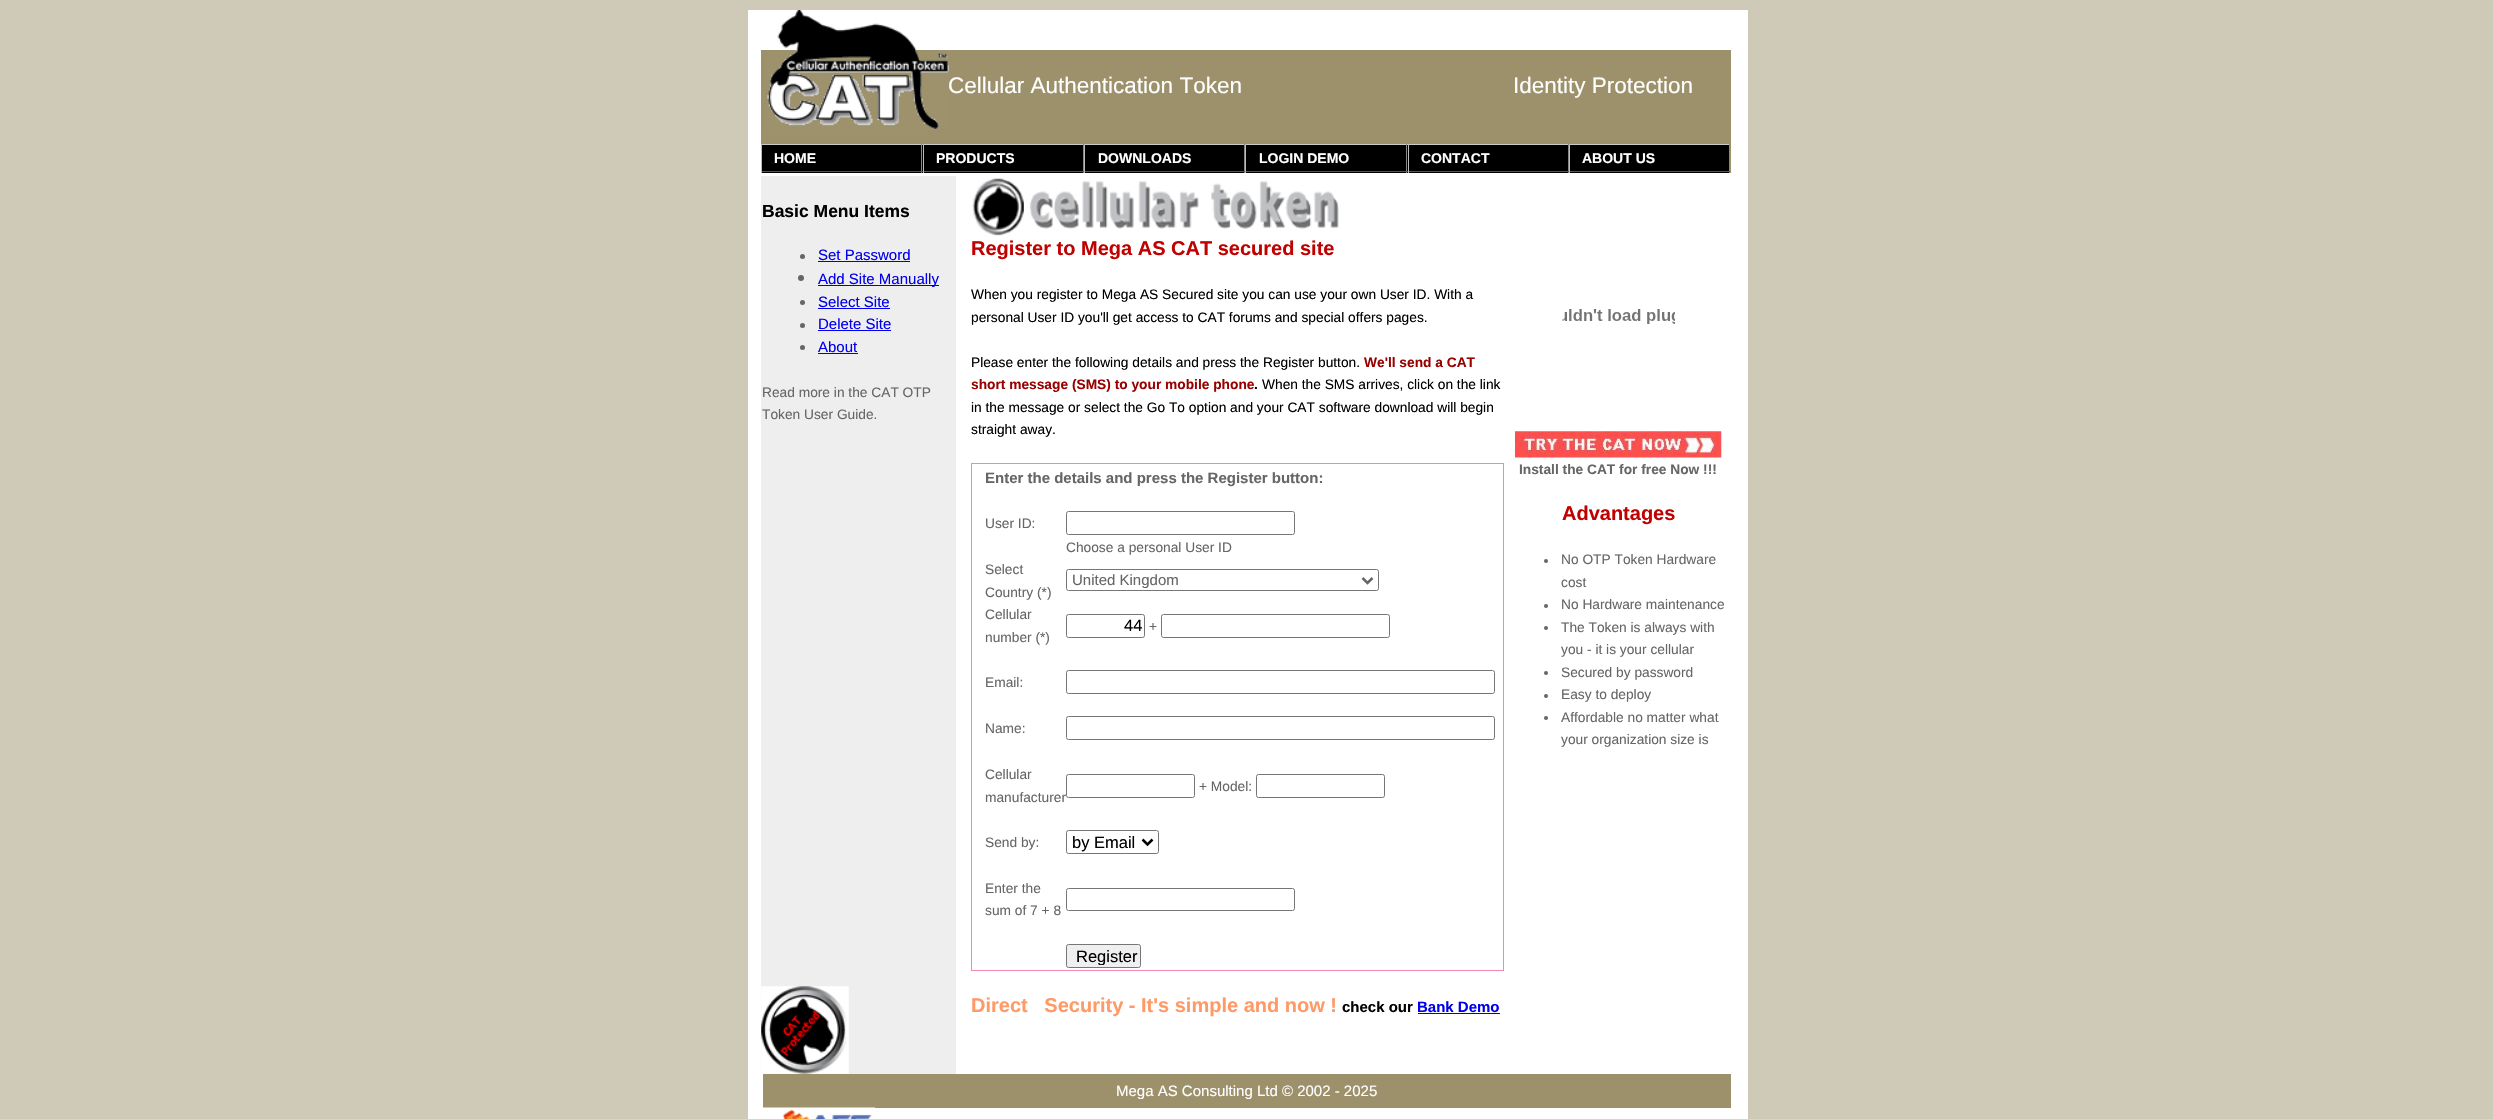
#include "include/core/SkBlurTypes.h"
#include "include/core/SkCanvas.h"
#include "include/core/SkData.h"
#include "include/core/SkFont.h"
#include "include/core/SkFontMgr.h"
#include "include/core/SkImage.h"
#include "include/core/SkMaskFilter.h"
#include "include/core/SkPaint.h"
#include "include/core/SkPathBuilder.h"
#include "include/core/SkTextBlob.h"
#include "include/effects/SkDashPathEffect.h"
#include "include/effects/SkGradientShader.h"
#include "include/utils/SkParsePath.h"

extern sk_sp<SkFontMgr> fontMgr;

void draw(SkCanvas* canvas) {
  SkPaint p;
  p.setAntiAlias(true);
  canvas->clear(SkColorSetRGB(207, 202, 184));
  p.setColor(SK_ColorWHITE);
  canvas->drawRect(SkRect::MakeLTRB(748, 10, 1748, 50), p);
  canvas->drawImageRect(SkImages::DeferredFromEncodedData(SkData::MakeFromFileName("images/1.png")), SkRect::MakeLTRB(777, 10, 917, 50), SkSamplingOptions());
  canvas->drawRect(SkRect::MakeLTRB(748, 50, 761, 1074), p);
  p.setColor(SkColorSetRGB(156, 145, 107));
  canvas->drawRect(SkRect::MakeLTRB(761, 50, 1731, 144), p);
  canvas->drawImageRect(SkImages::DeferredFromEncodedData(SkData::MakeFromFileName("images/2.png")), SkRect::MakeLTRB(767, 50, 949, 129), SkSamplingOptions());
  p.setColor(SK_ColorWHITE);
  canvas->drawRect(SkRect::MakeLTRB(1731, 50, 1748, 173), p);
  p.setColor(SkColorSetRGB(156, 145, 107));
  canvas->drawRect(SkRect::MakeLTRB(1730, 144, 1731, 173), p);
  p.setColor(SK_ColorBLACK);
  canvas->drawRect(SkRect::MakeLTRB(762, 145, 923, 173), p);
  p.setColor(SkColorSetRGB(204, 204, 204));
  canvas->drawRect(SkRect::MakeLTRB(761, 144, 1730, 145), p);
  p.setColor(SkColorSetRGB(136, 136, 136));
  canvas->drawRect(SkRect::MakeLTRB(921, 144, 922, 173), p);
  p.setColor(SkColorSetRGB(85, 85, 85));
  canvas->drawRect(SkRect::MakeLTRB(761, 171, 923, 172), p);
  p.setColor(SkColorSetRGB(187, 187, 187));
  canvas->drawRect(SkRect::MakeLTRB(761, 144, 762, 173), p);
  p.setColor(SK_ColorBLACK);
  canvas->drawRect(SkRect::MakeLTRB(924, 145, 1083, 173), p);
  p.setColor(SkColorSetRGB(136, 136, 136));
  canvas->drawRect(SkRect::MakeLTRB(1083, 144, 1084, 173), p);
  p.setColor(SkColorSetRGB(85, 85, 85));
  canvas->drawRect(SkRect::MakeLTRB(923, 171, 1084, 172), p);
  p.setColor(SkColorSetRGB(187, 187, 187));
  canvas->drawRect(SkRect::MakeLTRB(923, 144, 924, 173), p);
  p.setColor(SK_ColorBLACK);
  canvas->drawRect(SkRect::MakeLTRB(1085, 145, 1244, 173), p);
  p.setColor(SkColorSetRGB(136, 136, 136));
  canvas->drawRect(SkRect::MakeLTRB(1244, 144, 1245, 173), p);
  p.setColor(SkColorSetRGB(85, 85, 85));
  canvas->drawRect(SkRect::MakeLTRB(1084, 171, 1245, 172), p);
  p.setColor(SkColorSetRGB(187, 187, 187));
  canvas->drawRect(SkRect::MakeLTRB(1084, 144, 1085, 173), p);
  p.setColor(SK_ColorBLACK);
  canvas->drawRect(SkRect::MakeLTRB(1246, 145, 1408, 173), p);
  p.setColor(SkColorSetRGB(136, 136, 136));
  canvas->drawRect(SkRect::MakeLTRB(1406, 144, 1407, 173), p);
  p.setColor(SkColorSetRGB(85, 85, 85));
  canvas->drawRect(SkRect::MakeLTRB(1245, 171, 1408, 172), p);
  p.setColor(SkColorSetRGB(187, 187, 187));
  canvas->drawRect(SkRect::MakeLTRB(1245, 144, 1246, 173), p);
  p.setColor(SK_ColorBLACK);
  canvas->drawRect(SkRect::MakeLTRB(1409, 145, 1568, 173), p);
  p.setColor(SkColorSetRGB(136, 136, 136));
  canvas->drawRect(SkRect::MakeLTRB(1568, 144, 1569, 173), p);
  p.setColor(SkColorSetRGB(85, 85, 85));
  canvas->drawRect(SkRect::MakeLTRB(1408, 171, 1569, 172), p);
  p.setColor(SkColorSetRGB(187, 187, 187));
  canvas->drawRect(SkRect::MakeLTRB(1408, 144, 1409, 173), p);
  p.setColor(SK_ColorBLACK);
  canvas->drawRect(SkRect::MakeLTRB(1570, 145, 1729, 173), p);
  p.setColor(SkColorSetRGB(136, 136, 136));
  canvas->drawRect(SkRect::MakeLTRB(1729, 144, 1730, 173), p);
  p.setColor(SkColorSetRGB(85, 85, 85));
  canvas->drawRect(SkRect::MakeLTRB(1569, 171, 1730, 172), p);
  p.setColor(SkColorSetRGB(187, 187, 187));
  canvas->drawRect(SkRect::MakeLTRB(1569, 144, 1570, 173), p);
  p.setColor(SK_ColorWHITE);
  canvas->drawRect(SkRect::MakeLTRB(761, 173, 1748, 176), p);
  p.setColor(SkColorSetRGB(238, 238, 238));
  canvas->drawRect(SkRect::MakeLTRB(761, 176, 956, 1074), p);
  p.setColor(SkColorSetRGB(102, 102, 102));
  canvas->drawCircle(802.5f, 256.5f, 2.5f, p);
  p.setColor(SkColorSetRGB(0, 0, 238));
  canvas->drawRect(SkRect::MakeLTRB(818, 261, 910, 262), p);
  p.setColor(SkColorSetRGB(102, 102, 102));
  canvas->drawCircle(801, 278, 3, p);
  p.setColor(SkColorSetRGB(0, 0, 238));
  canvas->drawRect(SkRect::MakeLTRB(818, 285, 939, 286), p);
  p.setColor(SkColorSetRGB(102, 102, 102));
  canvas->drawCircle(802.5f, 302.5f, 2.5f, p);
  p.setColor(SkColorSetRGB(0, 0, 238));
  canvas->drawRect(SkRect::MakeLTRB(818, 308, 890, 309), p);
  p.setColor(SkColorSetRGB(102, 102, 102));
  canvas->drawCircle(802.5f, 325.5f, 2.5f, p);
  p.setColor(SkColorSetRGB(0, 0, 238));
  canvas->drawRect(SkRect::MakeLTRB(818, 330, 891, 331), p);
  p.setColor(SkColorSetRGB(102, 102, 102));
  canvas->drawCircle(802.5f, 347.5f, 2.5f, p);
  p.setColor(SkColorSetRGB(0, 0, 238));
  canvas->drawRect(SkRect::MakeLTRB(818, 353, 858, 354), p);
  p.setColor(SK_ColorWHITE);
  canvas->drawRect(SkRect::MakeLTRB(956, 176, 971, 1074), p);
  canvas->drawRect(SkRect::MakeLTRB(971, 176, 1504, 970), p);
  canvas->drawImageRect(SkImages::DeferredFromEncodedData(SkData::MakeFromFileName("images/3.png")), SkRect::MakeLTRB(972, 178, 1339, 236), SkSamplingOptions());
  canvas->drawRect(SkRect::MakeLTRB(1733, 176, 1748, 1074), p);
  canvas->drawRect(SkRect::MakeLTRB(1504, 176, 1733, 971), p);
  canvas->drawImageRect(SkImages::DeferredFromEncodedData(SkData::MakeFromFileName("images/4.png")), SkRect::MakeLTRB(1562, 309, 1675, 324), SkSamplingOptions());
  canvas->drawImageRect(SkImages::DeferredFromEncodedData(SkData::MakeFromFileName("images/5.png")), SkRect::MakeLTRB(1515, 431, 1722, 458), SkSamplingOptions());
  p.setColor(SkColorSetRGB(102, 102, 102));
  canvas->drawCircle(1546, 561, 2, p);
  canvas->drawCircle(1546, 606, 2, p);
  canvas->drawCircle(1546, 628, 2, p);
  canvas->drawCircle(1546, 673, 2, p);
  canvas->drawCircle(1546, 696, 2, p);
  canvas->drawCircle(1546, 718, 2, p);
  p.setStyle(SkPaint::kStroke_Style);
  p.setStrokeWidth(1);
  p.setColor(SkColorSetRGB(239, 136, 179));
  canvas->drawRect(SkRect::MakeLTRB(971.5f, 463.5f, 1503.5f, 970.5f), p);
  p.setColor(SkColorSetRGB(118, 118, 118));
  canvas->drawRoundRect(SkRect::MakeLTRB(1066.5f, 511.5f, 1294.5f, 534.5f), 2, 2, p);
  canvas->drawRoundRect(SkRect::MakeLTRB(1066.5f, 569.5f, 1378.5f, 590.5f), 2, 2, p);
  p.setStrokeWidth(2.5f);
  p.setColor(SkColorSetRGB(102, 102, 102));
  canvas->drawPath(SkPathBuilder().moveTo(1362.5f, 578).lineTo(1367.5f, 583).lineTo(1372.5f, 578).detach(), p);
  p.setStrokeWidth(1);
  p.setColor(SkColorSetRGB(118, 118, 118));
  canvas->drawRoundRect(SkRect::MakeLTRB(1066.5f, 614.5f, 1144.5f, 637.5f), 2, 2, p);
  canvas->drawRoundRect(SkRect::MakeLTRB(1161.5f, 614.5f, 1389.5f, 637.5f), 2, 2, p);
  canvas->drawRoundRect(SkRect::MakeLTRB(1066.5f, 670.5f, 1494.5f, 693.5f), 2, 2, p);
  canvas->drawRoundRect(SkRect::MakeLTRB(1066.5f, 716.5f, 1494.5f, 739.5f), 2, 2, p);
  canvas->drawRoundRect(SkRect::MakeLTRB(1066.5f, 774.5f, 1194.5f, 797.5f), 2, 2, p);
  canvas->drawRoundRect(SkRect::MakeLTRB(1256.5f, 774.5f, 1384.5f, 797.5f), 2, 2, p);
  canvas->drawRoundRect(SkRect::MakeLTRB(1066.5f, 830.5f, 1158.5f, 853.5f), 2, 2, p);
  p.setStrokeWidth(2.5f);
  p.setColor(SK_ColorBLACK);
  canvas->drawPath(SkPathBuilder().moveTo(1142.5f, 839.5f).lineTo(1147.5f, 844.5f).lineTo(1152.5f, 839.5f).detach(), p);
  p.setStrokeWidth(1);
  p.setColor(SkColorSetRGB(118, 118, 118));
  canvas->drawRoundRect(SkRect::MakeLTRB(1066.5f, 888.5f, 1294.5f, 910.5f), 2, 2, p);
  p.setStyle(SkPaint::kFill_Style);
  p.setColor(SkColorSetRGB(239, 239, 239));
  canvas->drawRoundRect(SkRect::MakeLTRB(1066.5f, 944.5f, 1140.5f, 967.5f), 2, 2, p);
  p.setStyle(SkPaint::kStroke_Style);
  p.setColor(SkColorSetRGB(118, 118, 118));
  canvas->drawRoundRect(SkRect::MakeLTRB(1066.5f, 944.5f, 1140.5f, 967.5f), 2, 2, p);
  canvas->drawImageRect(SkImages::DeferredFromEncodedData(SkData::MakeFromFileName("images/6.png")), SkRect::MakeLTRB(761, 986, 849, 1074), SkSamplingOptions());
  p.setStyle(SkPaint::kFill_Style);
  p.setColor(SK_ColorWHITE);
  canvas->drawRect(SkRect::MakeLTRB(971, 971, 1733, 1074), p);
  p.setColor(SkColorSetRGB(0, 0, 238));
  canvas->drawRect(SkRect::MakeLTRB(1418, 1013, 1500, 1014), p);
  p.setColor(SK_ColorWHITE);
  canvas->drawRect(SkRect::MakeLTRB(748, 1074, 763, 1119), p);
  p.setColor(SkColorSetRGB(156, 145, 107));
  canvas->drawRect(SkRect::MakeLTRB(763, 1074, 1731, 1108), p);
  p.setColor(SK_ColorWHITE);
  canvas->drawRect(SkRect::MakeLTRB(1731, 1074, 1748, 1108), p);
  canvas->drawRect(SkRect::MakeLTRB(875, 1108, 1748, 1119), p);
  canvas->drawImageRect(SkImages::DeferredFromEncodedData(SkData::MakeFromFileName("images/7.png")), SkRect::MakeLTRB(763, 1107, 875, 1119), SkSamplingOptions());
  SkFont font1(fontMgr->matchFamilyStyle("Liberation Sans", SkFontStyle::Normal()), 22.5f);
  font1.setSubpixel(true);
  canvas->drawString("Cellular Authentication Token", 948, 93, font1, p);
  canvas->drawString("Identity Protection", 1513, 93, font1, p);
  SkFont font2(fontMgr->matchFamilyStyle("Liberation Sans", SkFontStyle::Bold()), 14);
  font2.setSubpixel(true);
  canvas->drawString("HOME", 774, 163, font2, p);
  canvas->drawString("PRODUCTS", 936, 163, font2, p);
  canvas->drawString("DOWNLOADS", 1098, 163, font2, p);
  canvas->drawString("LOGIN DEMO", 1259, 163, font2, p);
  canvas->drawString("CONTACT", 1421, 163, font2, p);
  canvas->drawString("ABOUT US", 1582, 163, font2, p);
  SkFont font3(fontMgr->matchFamilyStyle("Liberation Sans", SkFontStyle::Bold()), 17.5f);
  font3.setSubpixel(true);
  p.setColor(SK_ColorBLACK);
  canvas->drawString("Basic Menu Items", 762, 217, font3, p);
  SkFont font4(fontMgr->matchFamilyStyle("Liberation Sans", SkFontStyle::Normal()), 15);
  font4.setSubpixel(true);
  p.setColor(SkColorSetRGB(0, 0, 238));
  canvas->drawString("Set Password", 818, 260, font4, p);
  canvas->drawString("Add Site Manually", 818, 284, font4, p);
  canvas->drawString("Select Site", 818, 307, font4, p);
  canvas->drawString("Delete Site", 818, 329, font4, p);
  canvas->drawString("About", 818, 352, font4, p);
  SkFont font5(fontMgr->matchFamilyStyle("Liberation Sans", SkFontStyle::Normal()), 13.75f);
  font5.setSubpixel(true);
  p.setColor(SkColorSetRGB(102, 102, 102));
  canvas->drawString("Read more in the CAT OTP", 762, 397, font5, p);
  canvas->drawString("Token User Guide.", 762, 419, font5, p);
  SkFont font6(fontMgr->matchFamilyStyle("Liberation Sans", SkFontStyle::Bold()), 13.75f);
  font6.setSubpixel(true);
  canvas->drawString("Install the CAT for free Now !!!", 1519, 474, font6, p);
  SkFont font7(fontMgr->matchFamilyStyle("Liberation Sans", SkFontStyle::Bold()), 20);
  font7.setSubpixel(true);
  p.setColor(SkColorSetRGB(193, 0, 0));
  canvas->drawString("Advantages", 1562, 520, font7, p);
  p.setColor(SkColorSetRGB(102, 102, 102));
  canvas->drawString("No OTP Token Hardware", 1561, 564, font5, p);
  canvas->drawString("cost", 1561, 587, font5, p);
  canvas->drawString("No Hardware maintenance", 1561, 609, font5, p);
  canvas->drawString("The Token is always with", 1561, 632, font5, p);
  canvas->drawString("you - it is your cellular", 1561, 654, font5, p);
  canvas->drawString("Secured by password", 1561, 677, font5, p);
  canvas->drawString("Easy to deploy", 1561, 699, font5, p);
  canvas->drawString("Affordable no matter what", 1561, 722, font5, p);
  canvas->drawString("your organization size is", 1561, 744, font5, p);
  p.setColor(SkColorSetRGB(193, 0, 0));
  canvas->drawString("Register to Mega AS CAT secured site", 971, 255, font7, p);
  p.setColor(SK_ColorBLACK);
  canvas->drawString("When you register to Mega AS Secured site you can use your own User ID. With a", 971, 299, font5, p);
  canvas->drawString("personal User ID you'll get access to CAT forums and special offers pages.", 971, 322, font5, p);
  canvas->drawString("Please enter the following details and press the Register button.", 971, 367, font5, p);
  p.setColor(SkColorSetRGB(153, 0, 0));
  canvas->drawString("We'll send a CAT", 1364, 367, font6, p);
  canvas->drawString("short message (SMS) to your mobile phone", 971, 389, font6, p);
  p.setColor(SK_ColorBLACK);
  canvas->drawString(".", 1254, 389, font6, p);
  canvas->drawString("When the SMS arrives, click on the link", 1262, 389, font5, p);
  canvas->drawString("in the message or select the Go To option and your CAT software download will begin", 971, 412, font5, p);
  canvas->drawString("straight away.", 971, 434, font5, p);
  SkFont font8(fontMgr->matchFamilyStyle("Liberation Sans", SkFontStyle::Bold()), 15);
  font8.setSubpixel(true);
  p.setColor(SkColorSetRGB(102, 102, 102));
  canvas->drawString("Enter the details and press the Register button:", 985, 483, font8, p);
  canvas->drawString("User ID:", 985, 528, font5, p);
  canvas->drawString("Choose a personal User ID", 1066, 552, font5, p);
  canvas->drawString("Select", 985, 574, font5, p);
  canvas->drawString("Country (*)", 985, 597, font5, p);
  canvas->drawString("United Kingdom", 1072, 585, font4, p);
  canvas->drawString("Cellular", 985, 619, font5, p);
  canvas->drawString("number (*)", 985, 642, font5, p);
  SkFont font9(fontMgr->matchFamilyStyle("Liberation Sans", SkFontStyle::Normal()), 16.5f);
  font9.setSubpixel(true);
  p.setColor(SK_ColorBLACK);
  canvas->drawString("44", 1124, 631, font9, p);
  p.setColor(SkColorSetRGB(102, 102, 102));
  canvas->drawString("+", 1149, 631, font5, p);
  canvas->drawString("Email:", 985, 687, font5, p);
  canvas->drawString("Name:", 985, 733, font5, p);
  canvas->drawString("Cellular", 985, 779, font5, p);
  canvas->drawString("manufacturer", 985, 802, font5, p);
  canvas->drawString("+ Model:", 1199, 791, font5, p);
  canvas->drawString("Send by:", 985, 847, font5, p);
  p.setColor(SK_ColorBLACK);
  canvas->drawString("by Email", 1072, 848, font9, p);
  p.setColor(SkColorSetRGB(102, 102, 102));
  canvas->drawString("Enter the", 985, 893, font5, p);
  canvas->drawString("sum of 7 + 8", 985, 915, font5, p);
  canvas->save();
  canvas->clipRect(SkRect::MakeLTRB(1069, 946, 1139, 965));
  p.setColor(SK_ColorBLACK);
  canvas->drawString("Register", 1076, 962, font9, p);
  canvas->restore();
  p.setColor(SkColorSetRGB(255, 153, 102));
  canvas->drawString("Direct   Security - It's simple and now !", 971, 1012, font7, p);
  p.setColor(SK_ColorBLACK);
  canvas->drawString("check our", 1342, 1012, font8, p);
  p.setColor(SkColorSetRGB(0, 0, 238));
  canvas->drawString("Bank Demo", 1417, 1012, font8, p);
  p.setColor(SK_ColorWHITE);
  canvas->drawString("Mega AS Consulting Ltd © 2002 - 2025", 1116, 1096, font4, p);
}
